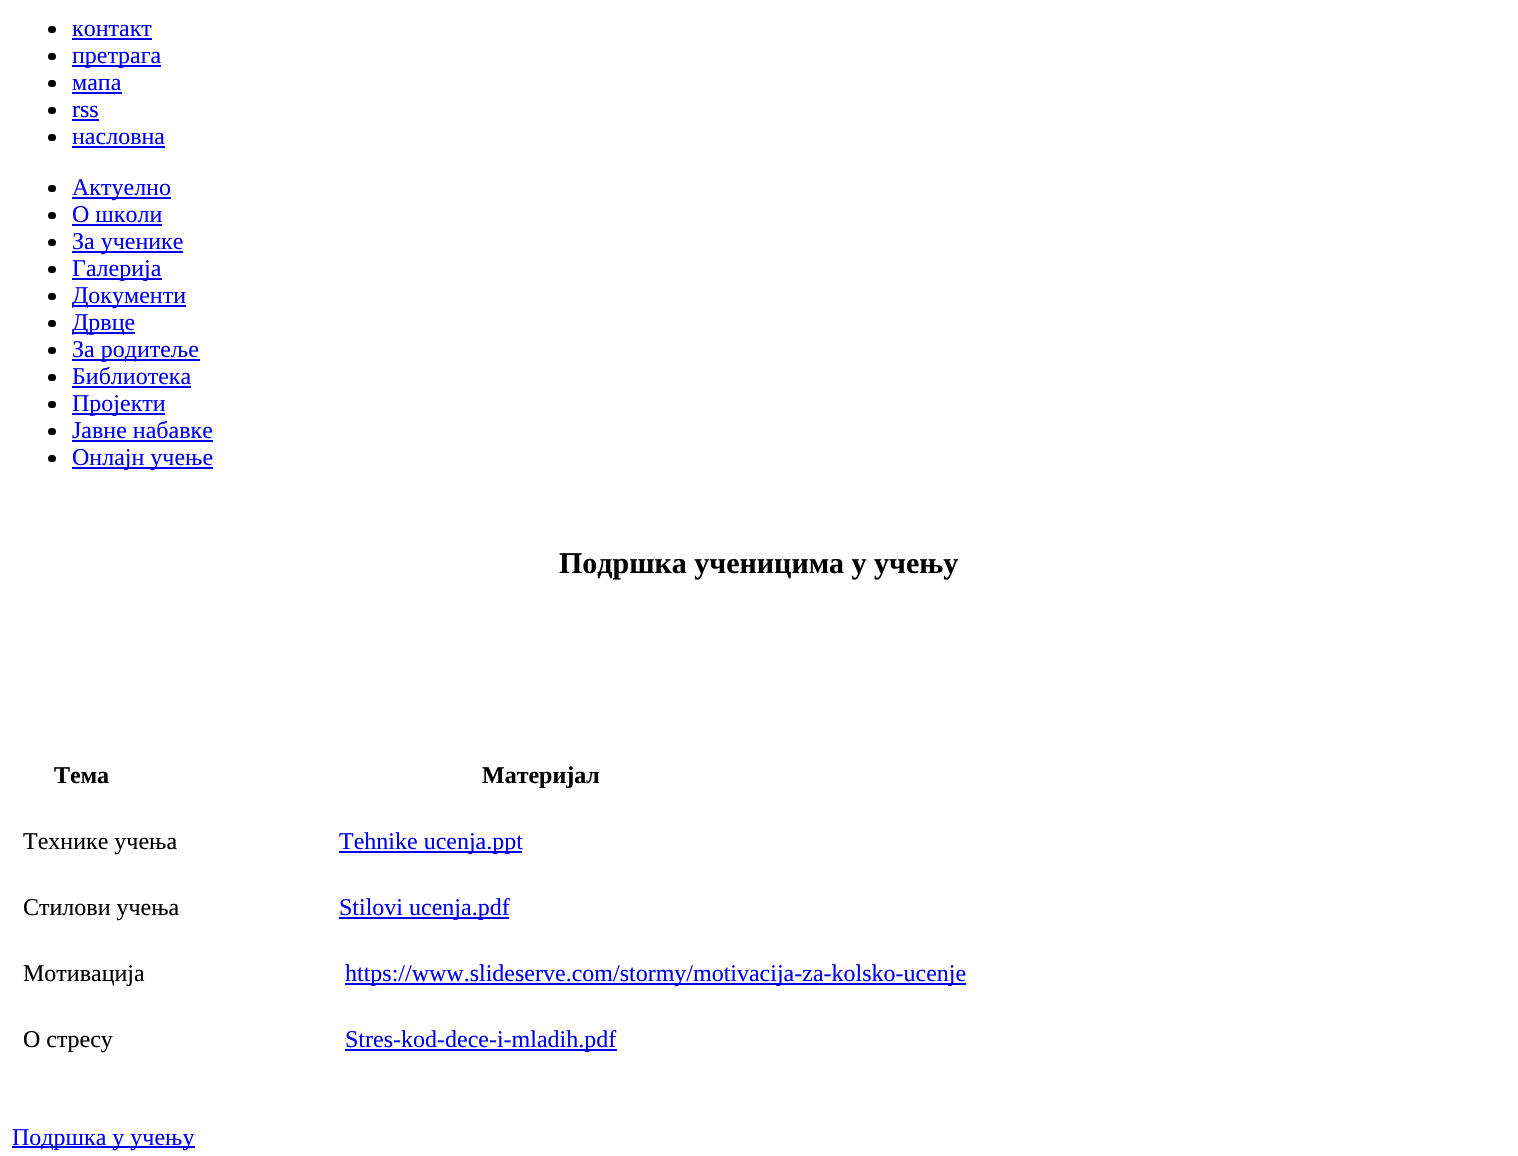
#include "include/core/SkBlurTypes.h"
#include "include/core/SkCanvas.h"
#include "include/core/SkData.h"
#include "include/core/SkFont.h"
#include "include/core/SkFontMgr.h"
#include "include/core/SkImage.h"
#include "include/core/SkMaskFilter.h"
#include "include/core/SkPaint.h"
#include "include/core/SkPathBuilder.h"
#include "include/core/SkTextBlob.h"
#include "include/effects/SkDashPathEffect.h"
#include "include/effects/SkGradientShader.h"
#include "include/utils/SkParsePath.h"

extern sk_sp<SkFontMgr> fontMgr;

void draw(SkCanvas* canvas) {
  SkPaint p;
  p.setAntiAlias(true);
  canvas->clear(SK_ColorWHITE);
  p.setColor(SK_ColorBLACK);
  canvas->drawRoundRect(SkRect::MakeLTRB(48, 26, 56, 33), 3.5f, 3.5f, p);
  p.setColor(SkColorSetRGB(0, 0, 238));
  canvas->drawRect(SkRect::MakeLTRB(72, 38, 152, 40), p);
  p.setColor(SK_ColorBLACK);
  canvas->drawRoundRect(SkRect::MakeLTRB(48, 53, 56, 60), 3.5f, 3.5f, p);
  p.setColor(SkColorSetRGB(0, 0, 238));
  canvas->drawRect(SkRect::MakeLTRB(72, 65, 161, 67), p);
  p.setColor(SK_ColorBLACK);
  canvas->drawRoundRect(SkRect::MakeLTRB(48, 80, 56, 87), 3.5f, 3.5f, p);
  p.setColor(SkColorSetRGB(0, 0, 238));
  canvas->drawRect(SkRect::MakeLTRB(72, 92, 122, 94), p);
  p.setColor(SK_ColorBLACK);
  canvas->drawRoundRect(SkRect::MakeLTRB(48, 107, 56, 114), 3.5f, 3.5f, p);
  p.setColor(SkColorSetRGB(0, 0, 238));
  canvas->drawRect(SkRect::MakeLTRB(72, 119, 99, 121), p);
  p.setColor(SK_ColorBLACK);
  canvas->drawRoundRect(SkRect::MakeLTRB(48, 134, 56, 141), 3.5f, 3.5f, p);
  p.setColor(SkColorSetRGB(0, 0, 238));
  canvas->drawRect(SkRect::MakeLTRB(72, 146, 165, 148), p);
  p.setColor(SK_ColorBLACK);
  canvas->drawRoundRect(SkRect::MakeLTRB(48, 185, 56, 192), 3.5f, 3.5f, p);
  p.setColor(SkColorSetRGB(0, 0, 238));
  canvas->drawRect(SkRect::MakeLTRB(72, 197, 171, 199), p);
  p.setColor(SK_ColorBLACK);
  canvas->drawRoundRect(SkRect::MakeLTRB(48, 212, 56, 219), 3.5f, 3.5f, p);
  p.setColor(SkColorSetRGB(0, 0, 238));
  canvas->drawRect(SkRect::MakeLTRB(72, 224, 162, 226), p);
  p.setColor(SK_ColorBLACK);
  canvas->drawRoundRect(SkRect::MakeLTRB(48, 239, 56, 246), 3.5f, 3.5f, p);
  p.setColor(SkColorSetRGB(0, 0, 238));
  canvas->drawRect(SkRect::MakeLTRB(72, 251, 183, 253), p);
  p.setColor(SK_ColorBLACK);
  canvas->drawRoundRect(SkRect::MakeLTRB(48, 266, 56, 273), 3.5f, 3.5f, p);
  p.setColor(SkColorSetRGB(0, 0, 238));
  canvas->drawRect(SkRect::MakeLTRB(72, 278, 162, 280), p);
  p.setColor(SK_ColorBLACK);
  canvas->drawRoundRect(SkRect::MakeLTRB(48, 293, 56, 300), 3.5f, 3.5f, p);
  p.setColor(SkColorSetRGB(0, 0, 238));
  canvas->drawRect(SkRect::MakeLTRB(72, 305, 186, 307), p);
  p.setColor(SK_ColorBLACK);
  canvas->drawRoundRect(SkRect::MakeLTRB(48, 320, 56, 327), 3.5f, 3.5f, p);
  p.setColor(SkColorSetRGB(0, 0, 238));
  canvas->drawRect(SkRect::MakeLTRB(72, 332, 135, 334), p);
  p.setColor(SK_ColorBLACK);
  canvas->drawRoundRect(SkRect::MakeLTRB(48, 347, 56, 354), 3.5f, 3.5f, p);
  p.setColor(SkColorSetRGB(0, 0, 238));
  canvas->drawRect(SkRect::MakeLTRB(72, 359, 200, 361), p);
  p.setColor(SK_ColorBLACK);
  canvas->drawRoundRect(SkRect::MakeLTRB(48, 374, 56, 381), 3.5f, 3.5f, p);
  p.setColor(SkColorSetRGB(0, 0, 238));
  canvas->drawRect(SkRect::MakeLTRB(72, 386, 191, 388), p);
  p.setColor(SK_ColorBLACK);
  canvas->drawRoundRect(SkRect::MakeLTRB(48, 401, 56, 408), 3.5f, 3.5f, p);
  p.setColor(SkColorSetRGB(0, 0, 238));
  canvas->drawRect(SkRect::MakeLTRB(72, 413, 165, 415), p);
  p.setColor(SK_ColorBLACK);
  canvas->drawRoundRect(SkRect::MakeLTRB(48, 428, 56, 435), 3.5f, 3.5f, p);
  p.setColor(SkColorSetRGB(0, 0, 238));
  canvas->drawRect(SkRect::MakeLTRB(72, 440, 213, 442), p);
  p.setColor(SK_ColorBLACK);
  canvas->drawRoundRect(SkRect::MakeLTRB(48, 455, 56, 462), 3.5f, 3.5f, p);
  p.setColor(SkColorSetRGB(0, 0, 238));
  canvas->drawRect(SkRect::MakeLTRB(72, 467, 213, 469), p);
  canvas->drawRect(SkRect::MakeLTRB(339, 851, 522, 853), p);
  canvas->drawRect(SkRect::MakeLTRB(339, 917, 509, 919), p);
  canvas->drawRect(SkRect::MakeLTRB(345, 983, 966, 985), p);
  canvas->drawRect(SkRect::MakeLTRB(345, 1049, 617, 1051), p);
  canvas->drawRect(SkRect::MakeLTRB(12, 1146, 195, 1148), p);
  SkFont font1(fontMgr->matchFamilyStyle("Liberation Serif", SkFontStyle::Normal()), 24);
  font1.setSubpixel(true);
  canvas->drawString("контакт", 72, 36, font1, p);
  canvas->drawString("претрага", 72, 63, font1, p);
  canvas->drawString("мапа", 72, 90, font1, p);
  canvas->drawString("rss", 72, 117, font1, p);
  canvas->drawString("насловна", 72, 144, font1, p);
  canvas->drawString("Актуелно", 72, 195, font1, p);
  canvas->drawString("О школи", 72, 222, font1, p);
  canvas->drawString("За ученике", 72, 249, font1, p);
  canvas->drawString("Галерија", 72, 276, font1, p);
  canvas->drawString("Документи", 72, 303, font1, p);
  canvas->drawString("Дрвце", 72, 330, font1, p);
  canvas->drawString("За родитеље", 72, 357, font1, p);
  canvas->drawString("Библиотека", 72, 384, font1, p);
  canvas->drawString("Пројекти", 72, 411, font1, p);
  canvas->drawString("Јавне набавке", 72, 438, font1, p);
  canvas->drawString("Онлајн учење", 72, 465, font1, p);
  SkFont font2(fontMgr->matchFamilyStyle("Liberation Serif", SkFontStyle::Bold()), 30);
  font2.setSubpixel(true);
  p.setColor(SK_ColorBLACK);
  canvas->drawString("Подршка ученицима у учењу", 559, 573, font2, p);
  SkFont font3(fontMgr->matchFamilyStyle("Liberation Serif", SkFontStyle::Bold()), 24);
  font3.setSubpixel(true);
  canvas->drawString("Тема", 54, 783, font3, p);
  canvas->drawString("Материјал", 482, 783, font3, p);
  canvas->drawString("Технике учења", 23, 849, font1, p);
  p.setColor(SkColorSetRGB(0, 0, 238));
  canvas->drawString("Tehnike ucenja.ppt", 339, 849, font1, p);
  p.setColor(SK_ColorBLACK);
  canvas->drawString("Стилови учења", 23, 915, font1, p);
  p.setColor(SkColorSetRGB(0, 0, 238));
  canvas->drawString("Stilovi ucenja.pdf", 339, 915, font1, p);
  p.setColor(SK_ColorBLACK);
  canvas->drawString("Мотивација", 23, 981, font1, p);
  p.setColor(SkColorSetRGB(0, 0, 238));
  canvas->drawString("https://www.slideserve.com/stormy/motivacija-za-kolsko-ucenje", 345, 981, font1, p);
  p.setColor(SK_ColorBLACK);
  canvas->drawString("О стресу", 23, 1047, font1, p);
  p.setColor(SkColorSetRGB(0, 0, 238));
  canvas->drawString("Stres-kod-dece-i-mladih.pdf", 345, 1047, font1, p);
  canvas->drawString("Подршка у учењу", 12, 1145, font1, p);
}
